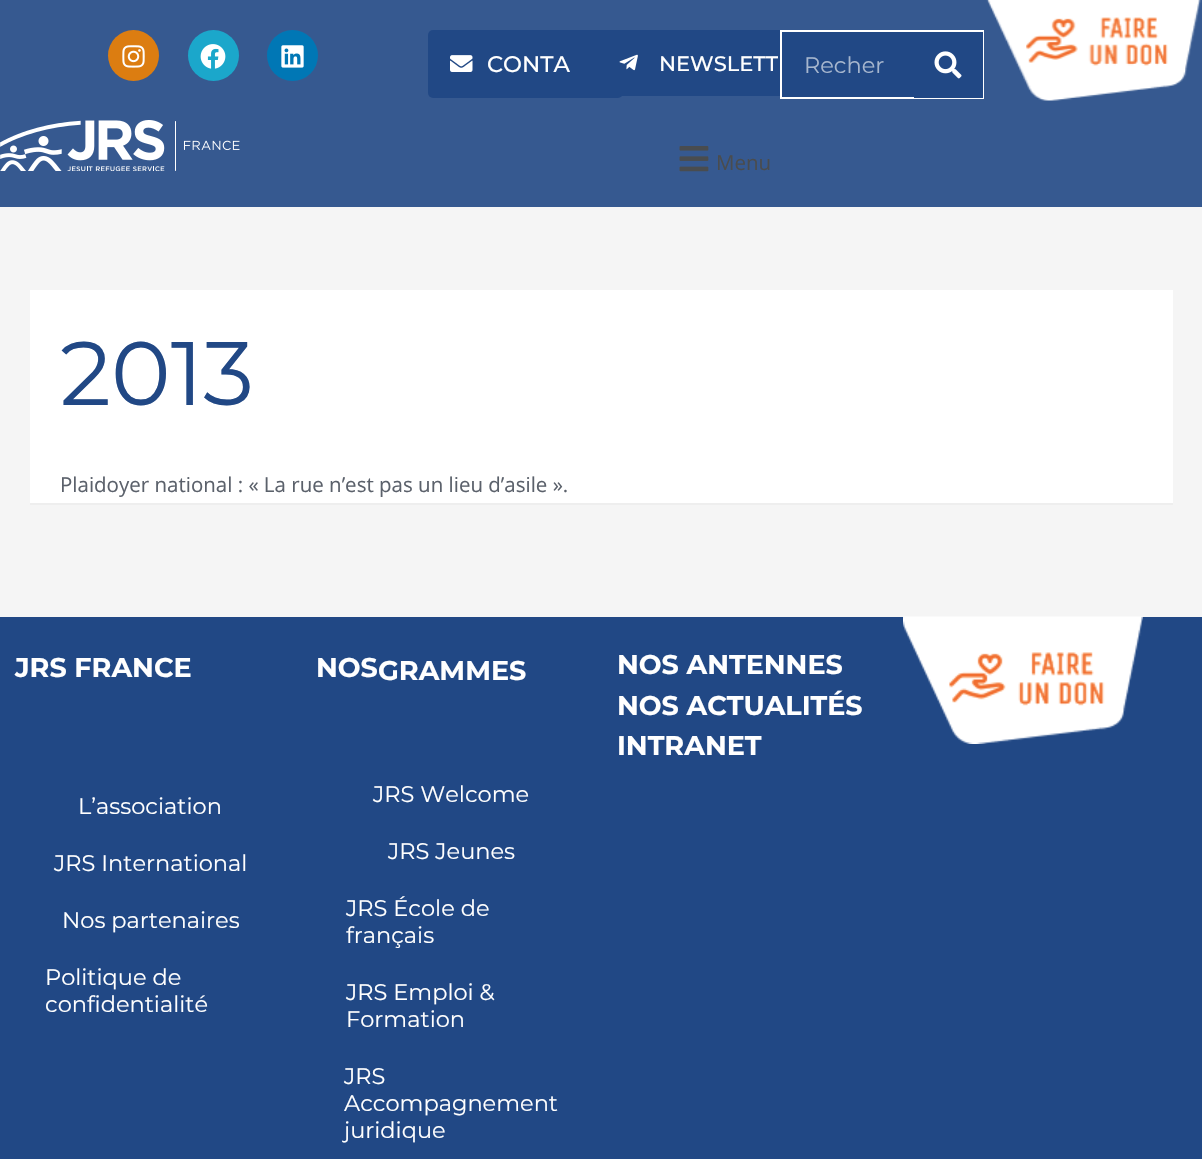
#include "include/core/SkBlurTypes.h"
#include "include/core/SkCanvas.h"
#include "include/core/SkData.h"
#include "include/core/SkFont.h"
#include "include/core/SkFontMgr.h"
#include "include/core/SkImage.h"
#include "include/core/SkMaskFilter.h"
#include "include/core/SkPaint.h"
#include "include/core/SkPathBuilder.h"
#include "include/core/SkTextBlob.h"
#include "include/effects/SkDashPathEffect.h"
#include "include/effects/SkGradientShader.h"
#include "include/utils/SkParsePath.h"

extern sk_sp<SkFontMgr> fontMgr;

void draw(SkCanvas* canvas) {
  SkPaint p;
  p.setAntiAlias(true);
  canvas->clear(SkColorSetRGB(245, 245, 245));
  p.setColor(SkColorSetRGB(54, 89, 144));
  canvas->drawRect(SkRect::MakeLTRB(0, 0, 1202, 207), p);
  canvas->drawImageRect(SkImages::DeferredFromEncodedData(SkData::MakeFromFileName("images/1.png")), SkRect::MakeLTRB(0, 120, 240, 171), SkSamplingOptions());
  p.setColor(SkColorSetRGB(220, 125, 17));
  canvas->drawCircle(133.5f, 55.5f, 25.5f, p);
  canvas->drawImageRect(SkImages::DeferredFromEncodedData(SkData::MakeFromFileName("images/2.png")), SkRect::MakeLTRB(122, 45, 145, 68), SkSamplingOptions());
  p.setColor(SkColorSetRGB(27, 167, 203));
  canvas->drawCircle(213.5f, 55.5f, 25.5f, p);
  canvas->drawImageRect(SkImages::DeferredFromEncodedData(SkData::MakeFromFileName("images/3.png")), SkRect::MakeLTRB(200, 44, 226, 69), SkSamplingOptions());
  p.setColor(SkColorSetRGB(0, 119, 181));
  canvas->drawCircle(292.5f, 55.5f, 25.5f, p);
  canvas->drawImageRect(SkImages::DeferredFromEncodedData(SkData::MakeFromFileName("images/4.png")), SkRect::MakeLTRB(281, 45, 304, 68), SkSamplingOptions());
  p.setColor(SkColorSetRGB(33, 72, 133));
  canvas->drawRoundRect(SkRect::MakeLTRB(428, 30, 623, 98), 5, 5, p);
  canvas->drawImageRect(SkImages::DeferredFromEncodedData(SkData::MakeFromFileName("images/5.png")), SkRect::MakeLTRB(450, 55, 473, 72), SkSamplingOptions());
  canvas->drawRoundRect(SkRect::MakeLTRB(575, 30, 854, 96), 6, 6, p);
  canvas->drawImageRect(SkImages::DeferredFromEncodedData(SkData::MakeFromFileName("images/6.png")), SkRect::MakeLTRB(619, 54, 638, 71), SkSamplingOptions());
  canvas->drawRect(SkRect::MakeLTRB(782, 32, 914, 97), p);
  p.setStyle(SkPaint::kStroke_Style);
  p.setStrokeWidth(2);
  p.setColor(SK_ColorWHITE);
  canvas->drawRect(SkRect::MakeLTRB(781, 31, 983, 98), p);
  p.setStyle(SkPaint::kFill_Style);
  p.setColor(SkColorSetRGB(33, 72, 133));
  canvas->drawRect(SkRect::MakeLTRB(914, 32, 983, 98), p);
  canvas->drawImageRect(SkImages::DeferredFromEncodedData(SkData::MakeFromFileName("images/7.png")), SkRect::MakeLTRB(934, 51, 962, 79), SkSamplingOptions());
  canvas->drawImageRect(SkImages::DeferredFromEncodedData(SkData::MakeFromFileName("images/8.png")), SkRect::MakeLTRB(986, 0, 1202, 101), SkSamplingOptions());
  canvas->drawImageRect(SkImages::DeferredFromEncodedData(SkData::MakeFromFileName("images/9.png")), SkRect::MakeLTRB(679, 146, 709, 172), SkSamplingOptions());
  p.setColor(SK_ColorWHITE);
  canvas->drawRect(SkRect::MakeLTRB(30, 290, 1173, 503), p);
  p.setColor(SkColorSetRGB(238, 238, 238));
  canvas->drawRect(SkRect::MakeLTRB(30, 503, 1173, 505), p);
  p.setColor(SkColorSetRGB(33, 72, 133));
  canvas->drawRect(SkRect::MakeLTRB(0, 617, 1202, 1159), p);
  canvas->drawImageRect(SkImages::DeferredFromEncodedData(SkData::MakeFromFileName("images/10.png")), SkRect::MakeLTRB(903, 616, 1143, 744), SkSamplingOptions());
  SkFont font1(fontMgr->matchFamilyStyle("Montserrat", SkFontStyle(500, SkFontStyle::kNormal_Width, SkFontStyle::kUpright_Slant)), 22.5f);
  font1.setSubpixel(true);
  p.setColor(SK_ColorWHITE);
  canvas->drawString("CONTA", 487, 72, font1, p);
  SkFont font2(fontMgr->matchFamilyStyle("Montserrat", SkFontStyle(500, SkFontStyle::kNormal_Width, SkFontStyle::kUpright_Slant)), 21);
  font2.setSubpixel(true);
  canvas->drawString("NEWSLETT", 659, 71, font2, p);
  SkFont font3(fontMgr->matchFamilyStyle("Montserrat", SkFontStyle::Normal()), 22.5f);
  font3.setSubpixel(true);
  p.setColor(SkColorSetRGB(166, 182, 206));
  canvas->drawString("Recher", 804, 73, font3, p);
  SkFont font4(fontMgr->matchFamilyStyle("Open Sans", SkFontStyle::Normal()), 20.5f);
  font4.setSubpixel(true);
  p.setColor(SkColorSetRGB(73, 76, 79));
  canvas->drawString("Menu", 716, 170, font4, p);
  SkFont font5(fontMgr->matchFamilyStyle("Montserrat", SkFontStyle::Normal()), 90);
  font5.setSubpixel(true);
  p.setColor(SkColorSetRGB(33, 72, 133));
  canvas->drawString("2013", 60, 405, font5, p);
  p.setColor(SkColorSetRGB(91, 97, 107));
  canvas->drawString("Plaidoyer national : « La rue n’est pas un lieu d’asile ».", 60, 492, font4, p);
  SkFont font6(fontMgr->matchFamilyStyle("Montserrat", SkFontStyle::Bold()), 27);
  font6.setSubpixel(true);
  p.setColor(SK_ColorWHITE);
  canvas->drawString("JRS FRANCE", 15, 677, font6, p);
  canvas->drawString("L’association", 78, 814, font3, p);
  canvas->drawString("JRS International", 54, 871, font3, p);
  canvas->drawString("Nos partenaires", 62, 928, font3, p);
  canvas->drawString("Politique de", 45, 985, font3, p);
  canvas->drawString("confidentialité", 45, 1012, font3, p);
  canvas->drawString("NOS", 316, 677, font6, p);
  canvas->drawString("GRAMMES", 378, 680, font6, p);
  canvas->drawString("JRS Welcome", 373, 802, font3, p);
  canvas->drawString("JRS Jeunes", 388, 859, font3, p);
  canvas->drawString("JRS École de", 346, 916, font3, p);
  canvas->drawString("français", 346, 943, font3, p);
  canvas->drawString("JRS Emploi &", 346, 1000, font3, p);
  canvas->drawString("Formation", 346, 1027, font3, p);
  canvas->drawString("JRS", 344, 1084, font3, p);
  canvas->drawString("Accompagnement", 344, 1111, font3, p);
  canvas->drawString("juridique", 344, 1138, font3, p);
  canvas->drawString("NOS ANTENNES", 617, 674, font6, p);
  canvas->drawString("NOS ACTUALITÉS", 617, 715, font6, p);
  canvas->drawString("INTRANET", 617, 755, font6, p);
}
